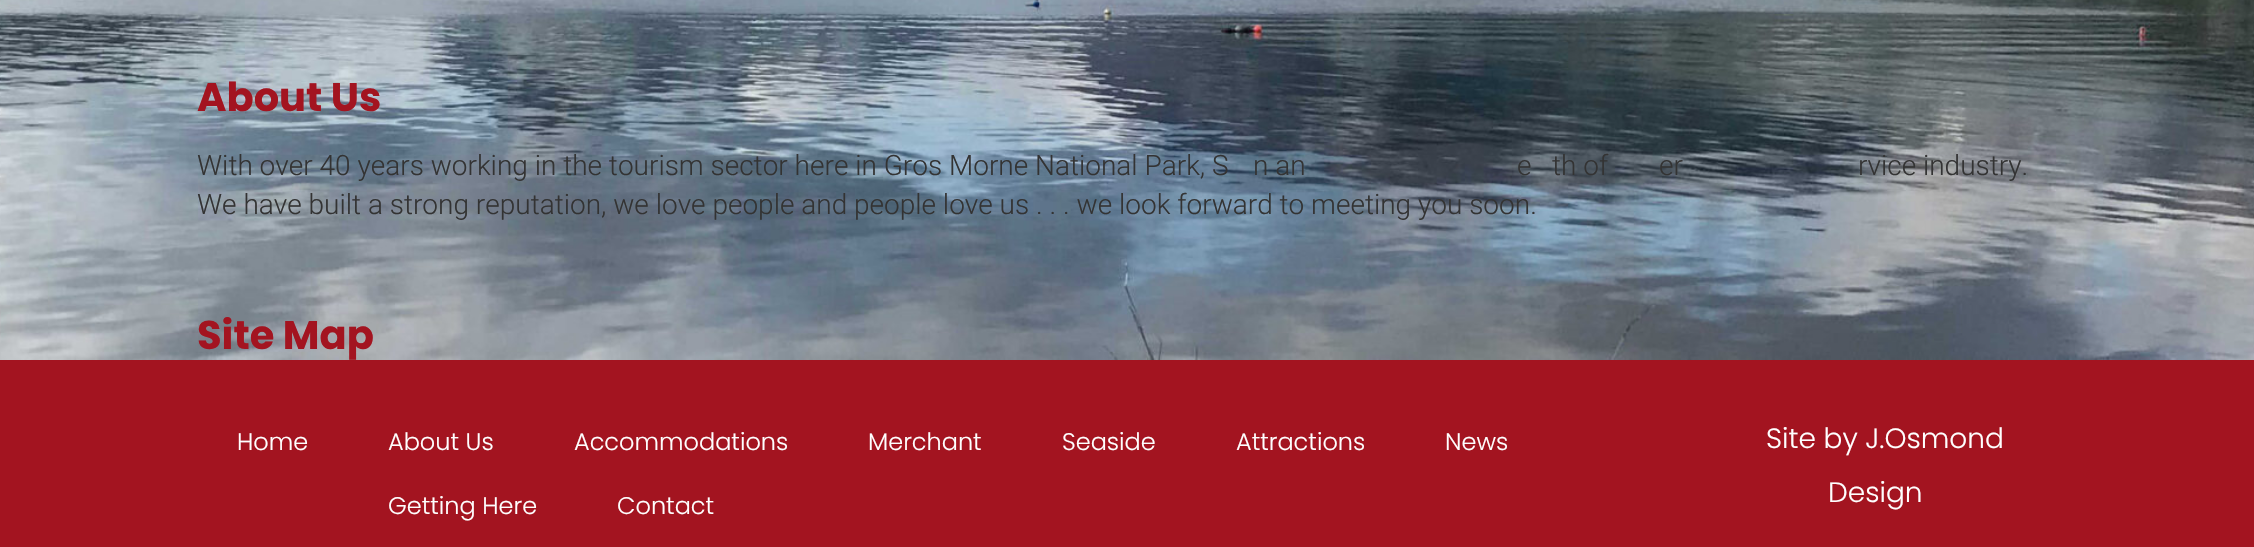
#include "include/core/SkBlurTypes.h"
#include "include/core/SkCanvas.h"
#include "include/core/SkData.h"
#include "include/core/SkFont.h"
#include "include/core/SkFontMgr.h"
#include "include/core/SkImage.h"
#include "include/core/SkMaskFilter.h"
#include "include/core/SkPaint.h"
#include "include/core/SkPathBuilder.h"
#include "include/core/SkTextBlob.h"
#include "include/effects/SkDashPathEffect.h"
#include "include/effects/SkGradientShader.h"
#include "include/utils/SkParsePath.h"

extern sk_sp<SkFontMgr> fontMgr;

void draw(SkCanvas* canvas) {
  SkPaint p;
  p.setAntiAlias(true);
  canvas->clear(SK_ColorWHITE);
  canvas->drawImageRect(SkImages::DeferredFromEncodedData(SkData::MakeFromFileName("images/1.png")), SkRect::MakeLTRB(0, 0, 2254, 360), SkSamplingOptions());
  p.setColor(SkColorSetRGB(163, 20, 32));
  canvas->drawRect(SkRect::MakeLTRB(0, 360, 2254, 547), p);
  SkFont font1(fontMgr->matchFamilyStyle("Poppins", SkFontStyle::Bold()), 40);
  font1.setSubpixel(true);
  canvas->drawString("About Us", 197, 111, font1, p);
  SkFont font2(fontMgr->matchFamilyStyle("Roboto", SkFontStyle(300, SkFontStyle::kNormal_Width, SkFontStyle::kUpright_Slant)), 28);
  font2.setSubpixel(true);
  p.setColor(SkColorSetRGB(51, 51, 51));
  canvas->drawString("With over 40 years working in the tourism sector here in Gros Morne National Park, S", 197, 175, font2, p);
  canvas->drawString("n an", 1253, 175, font2, p);
  canvas->drawString("e", 1517, 175, font2, p);
  canvas->drawString("th of", 1552, 175, font2, p);
  canvas->drawString("er", 1659, 175, font2, p);
  canvas->drawString("rvice industry.", 1858, 175, font2, p);
  canvas->drawString("We have built a strong reputation, we love people and people love us . . . we look forward to meeting you soon.", 197, 214, font2, p);
  p.setColor(SkColorSetRGB(163, 20, 32));
  canvas->drawString("Site Map", 197, 349, font1, p);
  SkFont font3(fontMgr->matchFamilyStyle("Poppins", SkFontStyle(300, SkFontStyle::kNormal_Width, SkFontStyle::kUpright_Slant)), 24);
  font3.setSubpixel(true);
  p.setColor(SK_ColorWHITE);
  canvas->drawString("Home", 237, 450, font3, p);
  canvas->drawString("About Us", 388, 450, font3, p);
  canvas->drawString("Accommodations", 574, 450, font3, p);
  canvas->drawString("Merchant", 868, 450, font3, p);
  canvas->drawString("Seaside", 1062, 450, font3, p);
  canvas->drawString("Attractions", 1236, 450, font3, p);
  canvas->drawString("News", 1445, 450, font3, p);
  canvas->drawString("Getting Here", 388, 514, font3, p);
  canvas->drawString("Contact", 617, 514, font3, p);
  SkFont font4(fontMgr->matchFamilyStyle("Poppins", SkFontStyle(300, SkFontStyle::kNormal_Width, SkFontStyle::kUpright_Slant)), 28);
  font4.setSubpixel(true);
  canvas->drawString("Site by J.Osmond", 1766, 448, font4, p);
  canvas->drawString("Design", 1828, 502, font4, p);
}
